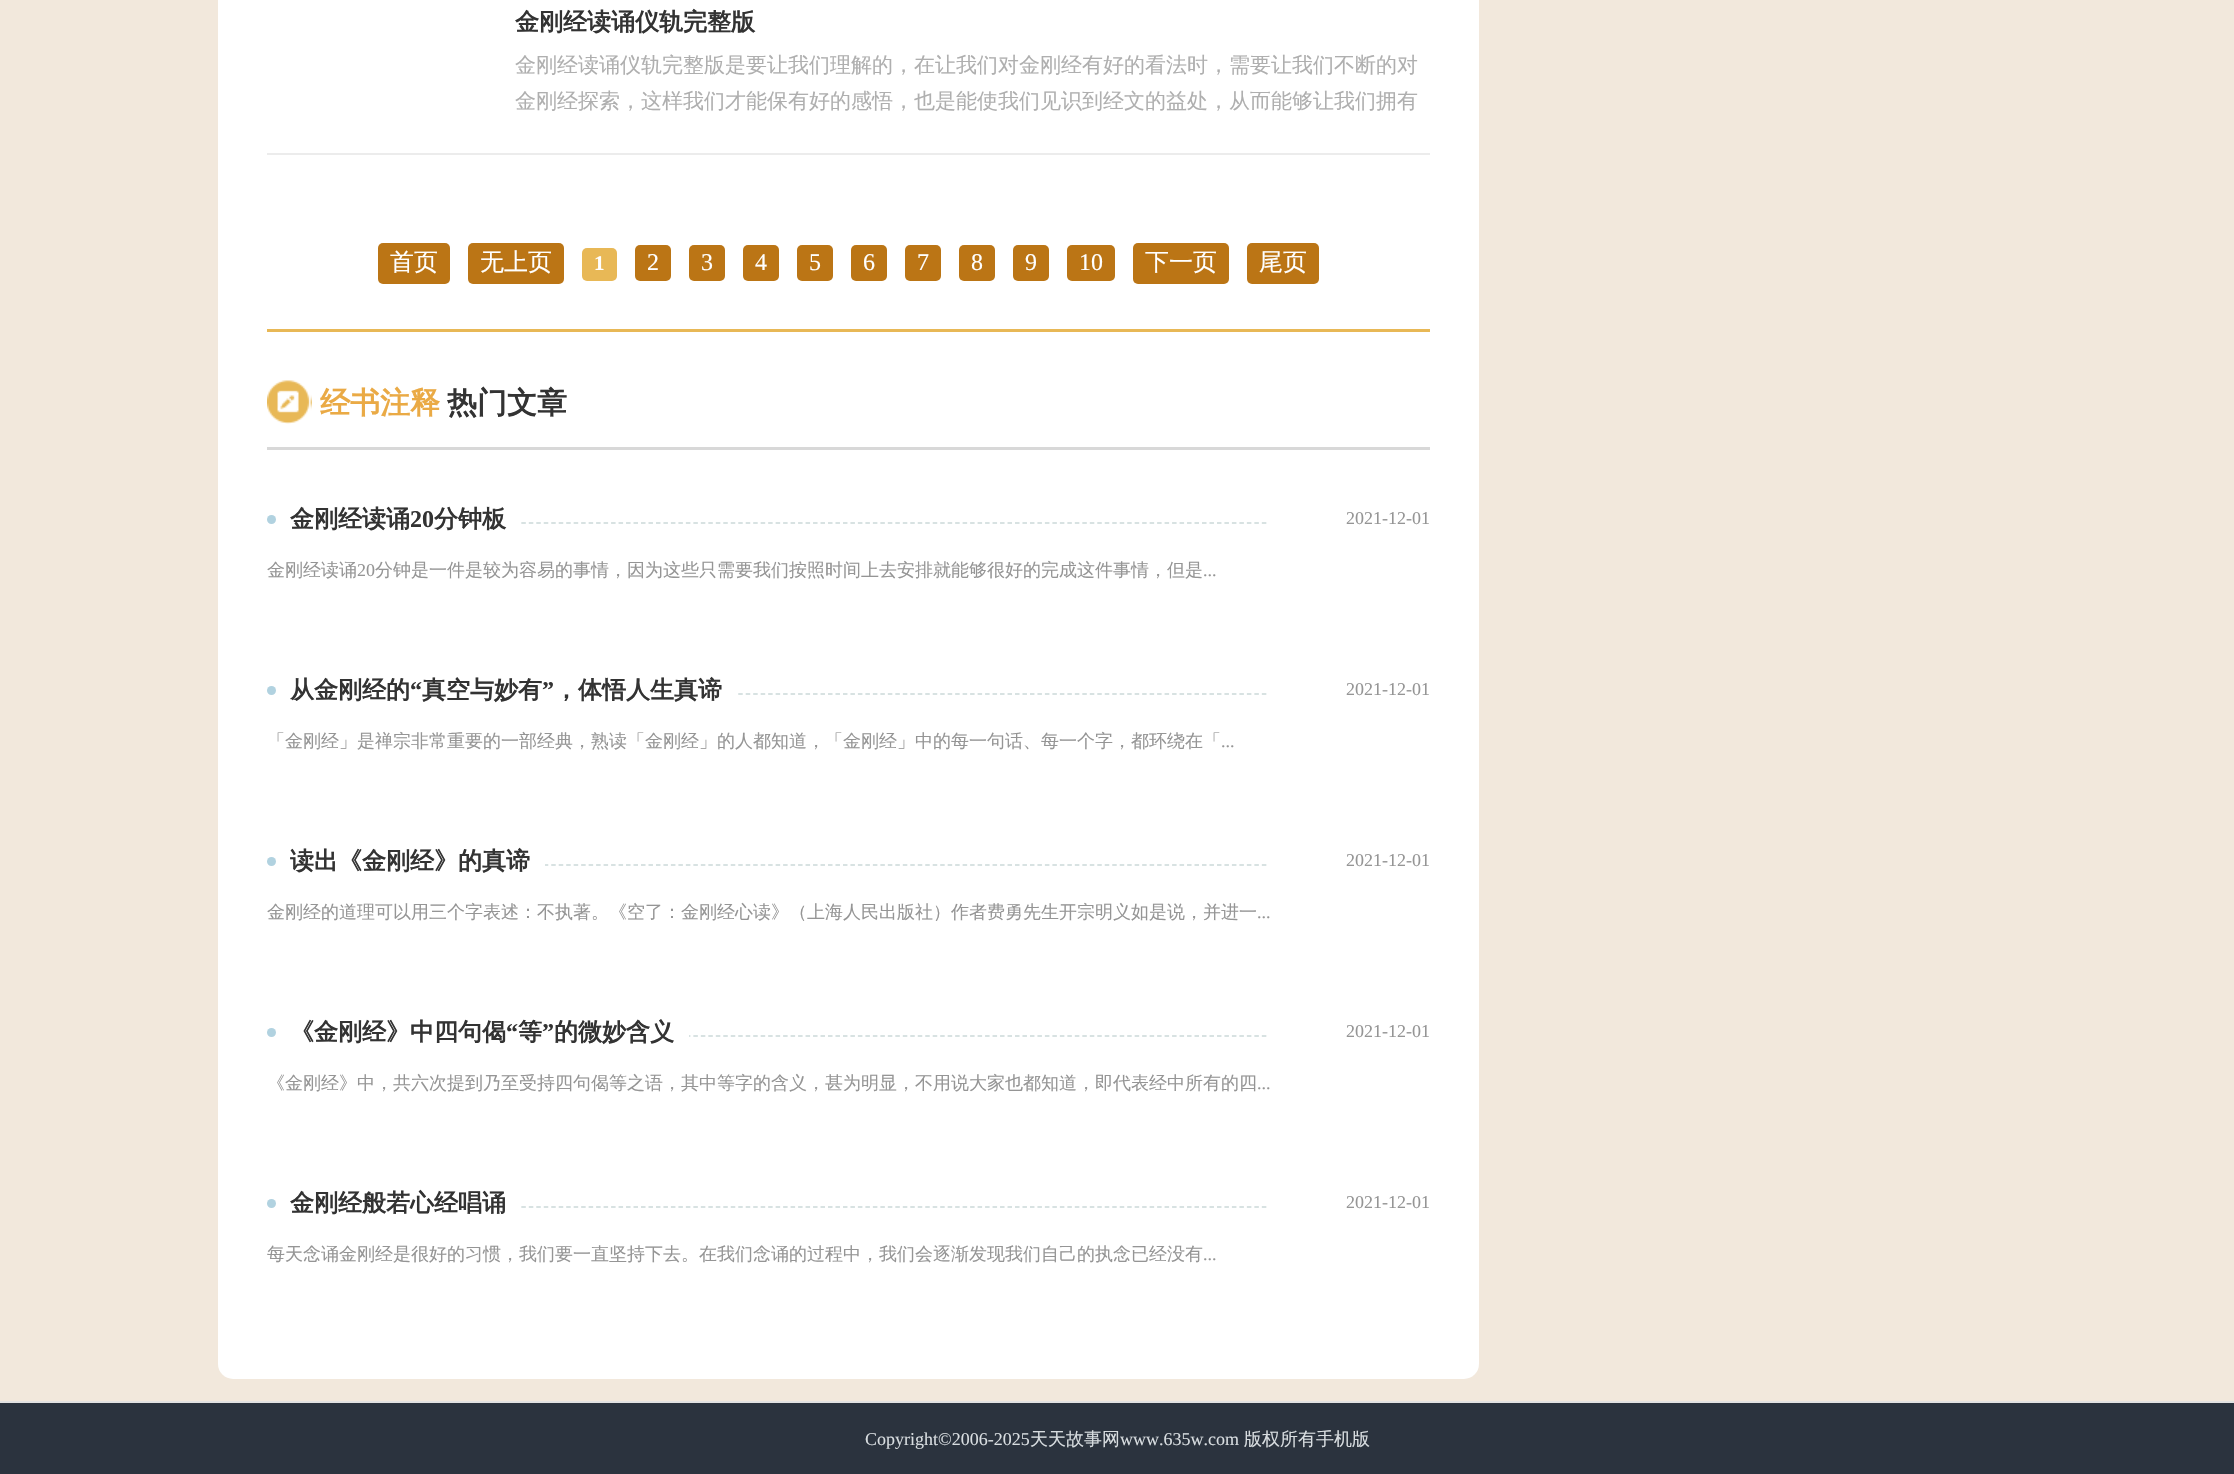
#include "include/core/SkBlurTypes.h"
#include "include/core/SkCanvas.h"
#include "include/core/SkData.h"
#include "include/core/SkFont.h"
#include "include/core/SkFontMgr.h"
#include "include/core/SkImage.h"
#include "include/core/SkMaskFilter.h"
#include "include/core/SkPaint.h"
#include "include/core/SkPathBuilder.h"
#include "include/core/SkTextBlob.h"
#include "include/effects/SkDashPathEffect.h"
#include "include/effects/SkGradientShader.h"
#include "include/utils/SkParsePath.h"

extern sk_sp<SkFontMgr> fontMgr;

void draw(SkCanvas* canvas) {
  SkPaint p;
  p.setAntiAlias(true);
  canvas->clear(SkColorSetRGB(242, 232, 220));
  p.setColor(SK_ColorWHITE);
  canvas->drawRoundRect(SkRect::MakeLTRB(218, -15, 1479, 1379), 15, 15, p);
  p.setColor(SkColorSetRGB(236, 236, 236));
  canvas->drawRect(SkRect::MakeLTRB(267, 153, 1430, 155), p);
  p.setColor(SkColorSetRGB(232, 184, 86));
  canvas->drawRect(SkRect::MakeLTRB(267, 329, 1430, 332), p);
  p.setColor(SkColorSetRGB(187, 117, 21));
  canvas->drawRoundRect(SkRect::MakeLTRB(378, 243, 450, 284), 5, 5, p);
  canvas->drawRoundRect(SkRect::MakeLTRB(468, 243, 564, 284), 5, 5, p);
  p.setColor(SkColorSetRGB(232, 184, 86));
  canvas->drawRoundRect(SkRect::MakeLTRB(582, 248, 617, 281), 5, 5, p);
  p.setColor(SkColorSetRGB(187, 117, 21));
  canvas->drawRoundRect(SkRect::MakeLTRB(635, 245, 671, 281), 5, 5, p);
  canvas->drawRoundRect(SkRect::MakeLTRB(689, 245, 725, 281), 5, 5, p);
  canvas->drawRoundRect(SkRect::MakeLTRB(743, 245, 779, 281), 5, 5, p);
  canvas->drawRoundRect(SkRect::MakeLTRB(797, 245, 833, 281), 5, 5, p);
  canvas->drawRoundRect(SkRect::MakeLTRB(851, 245, 887, 281), 5, 5, p);
  canvas->drawRoundRect(SkRect::MakeLTRB(905, 245, 941, 281), 5, 5, p);
  canvas->drawRoundRect(SkRect::MakeLTRB(959, 245, 995, 281), 5, 5, p);
  canvas->drawRoundRect(SkRect::MakeLTRB(1013, 245, 1049, 281), 5, 5, p);
  canvas->drawRoundRect(SkRect::MakeLTRB(1067, 245, 1115, 281), 5, 5, p);
  canvas->drawRoundRect(SkRect::MakeLTRB(1133, 243, 1229, 284), 5, 5, p);
  canvas->drawRoundRect(SkRect::MakeLTRB(1247, 243, 1319, 284), 5, 5, p);
  p.setColor(SkColorSetRGB(216, 216, 216));
  canvas->drawRect(SkRect::MakeLTRB(267, 447, 1430, 450), p);
  canvas->drawImageRect(SkImages::DeferredFromEncodedData(SkData::MakeFromFileName("images/1.png")), SkRect::MakeLTRB(267, 380, 312, 424), SkSamplingOptions());
  p.setStyle(SkPaint::kStroke_Style);
  p.setStrokeWidth(1.5f);
  p.setColor(SkColorSetRGB(203, 217, 217));
  p.setPathEffect(SkDashPathEffect::Make({{4.5f, 2.98f}}, 0));
  canvas->drawPath(SkPathBuilder().moveTo(267, 523).lineTo(1267.5f, 523).detach(), p);
  p.setPathEffect(nullptr);
  p.setStyle(SkPaint::kFill_Style);
  p.setColor(SK_ColorWHITE);
  canvas->drawRect(SkRect::MakeLTRB(267, 522, 519, 524), p);
  p.setColor(SkColorSetRGB(177, 210, 224));
  canvas->drawCircle(271.5f, 519.5f, 4.5f, p);
  p.setStyle(SkPaint::kStroke_Style);
  p.setColor(SkColorSetRGB(203, 217, 217));
  p.setPathEffect(SkDashPathEffect::Make({{4.5f, 2.98f}}, 0));
  canvas->drawPath(SkPathBuilder().moveTo(267, 694).lineTo(1267.5f, 694).detach(), p);
  p.setPathEffect(nullptr);
  p.setStyle(SkPaint::kFill_Style);
  p.setColor(SK_ColorWHITE);
  canvas->drawRect(SkRect::MakeLTRB(267, 693, 736, 695), p);
  p.setColor(SkColorSetRGB(177, 210, 224));
  canvas->drawCircle(271.5f, 690.5f, 4.5f, p);
  p.setStyle(SkPaint::kStroke_Style);
  p.setColor(SkColorSetRGB(203, 217, 217));
  p.setPathEffect(SkDashPathEffect::Make({{4.5f, 2.98f}}, 0));
  canvas->drawPath(SkPathBuilder().moveTo(267, 865).lineTo(1267.5f, 865).detach(), p);
  p.setPathEffect(nullptr);
  p.setStyle(SkPaint::kFill_Style);
  p.setColor(SK_ColorWHITE);
  canvas->drawRect(SkRect::MakeLTRB(267, 864, 545, 866), p);
  p.setColor(SkColorSetRGB(177, 210, 224));
  canvas->drawCircle(271.5f, 861.5f, 4.5f, p);
  p.setStyle(SkPaint::kStroke_Style);
  p.setColor(SkColorSetRGB(203, 217, 217));
  p.setPathEffect(SkDashPathEffect::Make({{4.5f, 2.98f}}, 0));
  canvas->drawPath(SkPathBuilder().moveTo(267, 1036).lineTo(1267.5f, 1036).detach(), p);
  p.setPathEffect(nullptr);
  p.setStyle(SkPaint::kFill_Style);
  p.setColor(SK_ColorWHITE);
  canvas->drawRect(SkRect::MakeLTRB(267, 1035, 689, 1037), p);
  p.setColor(SkColorSetRGB(177, 210, 224));
  canvas->drawCircle(271.5f, 1032.5f, 4.5f, p);
  p.setStyle(SkPaint::kStroke_Style);
  p.setColor(SkColorSetRGB(203, 217, 217));
  p.setPathEffect(SkDashPathEffect::Make({{4.5f, 2.98f}}, 0));
  canvas->drawPath(SkPathBuilder().moveTo(267, 1207).lineTo(1267.5f, 1207).detach(), p);
  p.setPathEffect(nullptr);
  p.setStyle(SkPaint::kFill_Style);
  p.setColor(SK_ColorWHITE);
  canvas->drawRect(SkRect::MakeLTRB(267, 1206, 519, 1208), p);
  p.setColor(SkColorSetRGB(177, 210, 224));
  canvas->drawCircle(271.5f, 1203.5f, 4.5f, p);
  p.setColor(SkColorSetRGB(43, 51, 62));
  canvas->drawRect(SkRect::MakeLTRB(0, 1403, 2234, 1474), p);
  p.setColor(SkColorSetRGB(226, 226, 226));
  canvas->drawRect(SkRect::MakeLTRB(0, 1401, 2234, 1403), p);
  SkFont font1(fontMgr->matchFamilyStyle("WenQuanYi Zen Hei", SkFontStyle::Bold()), 24);
  font1.setSubpixel(true);
  p.setColor(SkColorSetRGB(51, 51, 51));
  canvas->drawString("金刚经读诵仪轨完整版", 515, 30, font1, p);
  SkFont font2(fontMgr->matchFamilyStyle("WenQuanYi Zen Hei", SkFontStyle(500, SkFontStyle::kNormal_Width, SkFontStyle::kUpright_Slant)), 21);
  font2.setSubpixel(true);
  p.setColor(SkColorSetRGB(175, 175, 175));
  canvas->drawString("金刚经读诵仪轨完整版是要让我们理解的，在让我们对金刚经有好的看法时，需要让我们不断的对", 515, 72, font2, p);
  canvas->drawString("金刚经探索，这样我们才能保有好的感悟，也是能使我们见识到经文的益处，从而能够让我们拥有", 515, 108, font2, p);
  SkFont font3(fontMgr->matchFamilyStyle("WenQuanYi Zen Hei", SkFontStyle(500, SkFontStyle::kNormal_Width, SkFontStyle::kUpright_Slant)), 24);
  font3.setSubpixel(true);
  p.setColor(SK_ColorWHITE);
  canvas->drawString("首页", 390, 270, font3, p);
  canvas->drawString("无上页", 480, 270, font3, p);
  SkFont font4(fontMgr->matchFamilyStyle("Liberation Serif", SkFontStyle::Bold()), 21);
  font4.setSubpixel(true);
  canvas->drawString("1", 594, 270, font4, p);
  SkFont font5(fontMgr->matchFamilyStyle("Liberation Serif", SkFontStyle::Normal()), 24);
  font5.setSubpixel(true);
  canvas->drawString("2", 647, 270, font5, p);
  canvas->drawString("3", 701, 270, font5, p);
  canvas->drawString("4", 755, 270, font5, p);
  canvas->drawString("5", 809, 270, font5, p);
  canvas->drawString("6", 863, 270, font5, p);
  canvas->drawString("7", 917, 270, font5, p);
  canvas->drawString("8", 971, 270, font5, p);
  canvas->drawString("9", 1025, 270, font5, p);
  canvas->drawString("10", 1079, 270, font5, p);
  canvas->drawString("下一页", 1145, 270, font3, p);
  canvas->drawString("尾页", 1259, 270, font3, p);
  SkFont font6(fontMgr->matchFamilyStyle("WenQuanYi Zen Hei", SkFontStyle::Bold()), 30);
  font6.setSubpixel(true);
  p.setColor(SkColorSetRGB(234, 170, 69));
  canvas->drawString("经书注释", 320, 413, font6, p);
  p.setColor(SkColorSetRGB(51, 51, 51));
  canvas->drawString("热门文章", 447, 413, font6, p);
  canvas->drawString("金刚经读诵", 290, 527, font1, p);
  SkFont font7(fontMgr->matchFamilyStyle("Liberation Serif", SkFontStyle::Bold()), 24);
  font7.setSubpixel(true);
  canvas->drawString("20", 410, 527, font7, p);
  canvas->drawString("分钟板", 434, 527, font1, p);
  SkFont font8(fontMgr->matchFamilyStyle("Liberation Serif", SkFontStyle::Normal()), 18);
  font8.setSubpixel(true);
  p.setColor(SkColorSetRGB(149, 149, 149));
  canvas->drawString("2021-12-01", 1346, 524, font8, p);
  SkFont font9(fontMgr->matchFamilyStyle("WenQuanYi Zen Hei", SkFontStyle(500, SkFontStyle::kNormal_Width, SkFontStyle::kUpright_Slant)), 18);
  font9.setSubpixel(true);
  canvas->drawString("金刚经读诵", 267, 576, font9, p);
  canvas->drawString("20", 357, 576, font8, p);
  canvas->drawString("分钟是一件是较为容易的事情，因为这些只需要我们按照时间上去安排就能够很好的完成这件事情，但是", 375, 576, font9, p);
  canvas->drawString("...", 1203, 576, font8, p);
  p.setColor(SkColorSetRGB(51, 51, 51));
  canvas->drawString("从金刚经的", 290, 698, font1, p);
  canvas->drawString("“", 410, 698, font7, p);
  canvas->drawString("真空与妙有", 422, 698, font1, p);
  canvas->drawString("”", 542, 698, font7, p);
  canvas->drawString("，体悟人生真谛", 554, 698, font1, p);
  p.setColor(SkColorSetRGB(149, 149, 149));
  canvas->drawString("2021-12-01", 1346, 695, font8, p);
  canvas->drawString("「金刚经」是禅宗非常重要的一部经典，熟读「金刚经」的人都知道，「金刚经」中的每一句话、每一个字，都环绕在「", 267, 747, font9, p);
  canvas->drawString("...", 1221, 747, font8, p);
  p.setColor(SkColorSetRGB(51, 51, 51));
  canvas->drawString("读出《金刚经》的真谛", 290, 869, font1, p);
  p.setColor(SkColorSetRGB(149, 149, 149));
  canvas->drawString("2021-12-01", 1346, 866, font8, p);
  canvas->drawString("金刚经的道理可以用三个字表述：不执著。《空了：金刚经心读》（上海人民出版社）作者费勇先生开宗明义如是说，并进一", 267, 918, font9, p);
  canvas->drawString("...", 1257, 918, font8, p);
  p.setColor(SkColorSetRGB(51, 51, 51));
  canvas->drawString("《金刚经》中四句偈", 290, 1040, font1, p);
  canvas->drawString("“", 506, 1040, font7, p);
  canvas->drawString("等", 518, 1040, font1, p);
  canvas->drawString("”", 542, 1040, font7, p);
  canvas->drawString("的微妙含义", 554, 1040, font1, p);
  p.setColor(SkColorSetRGB(149, 149, 149));
  canvas->drawString("2021-12-01", 1346, 1037, font8, p);
  canvas->drawString("《金刚经》中，共六次提到乃至受持四句偈等之语，其中等字的含义，甚为明显，不用说大家也都知道，即代表经中所有的四", 267, 1089, font9, p);
  canvas->drawString("...", 1257, 1089, font8, p);
  p.setColor(SkColorSetRGB(51, 51, 51));
  canvas->drawString("金刚经般若心经唱诵", 290, 1211, font1, p);
  p.setColor(SkColorSetRGB(149, 149, 149));
  canvas->drawString("2021-12-01", 1346, 1208, font8, p);
  canvas->drawString("每天念诵金刚经是很好的习惯，我们要一直坚持下去。在我们念诵的过程中，我们会逐渐发现我们自己的执念已经没有", 267, 1260, font9, p);
  canvas->drawString("...", 1203, 1260, font8, p);
  p.setColor(SkColorSetRGB(216, 221, 224));
  canvas->drawString("Copyright©2006-2025", 865, 1445, font8, p);
  canvas->drawString("天天故事网", 1030, 1445, font9, p);
  canvas->drawString("www.635w.com", 1120, 1445, font8, p);
  canvas->drawString("版权所有手机版", 1244, 1445, font9, p);
}
